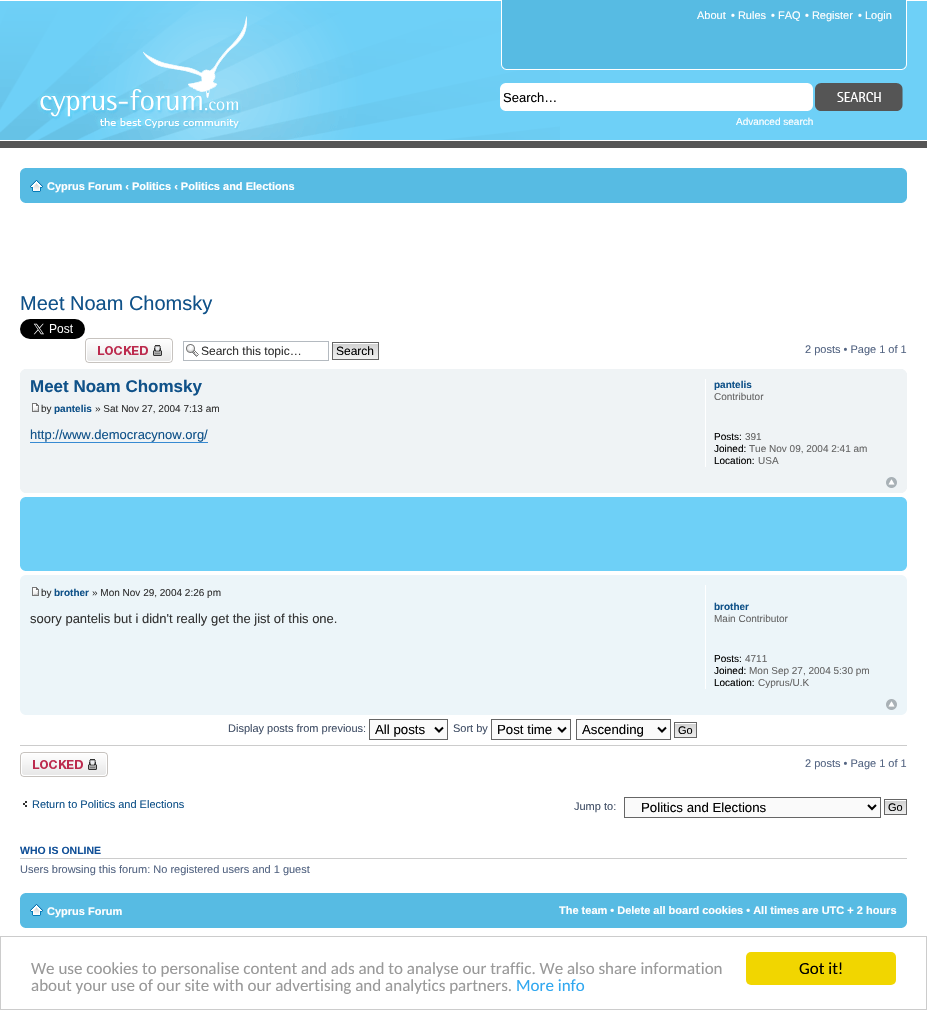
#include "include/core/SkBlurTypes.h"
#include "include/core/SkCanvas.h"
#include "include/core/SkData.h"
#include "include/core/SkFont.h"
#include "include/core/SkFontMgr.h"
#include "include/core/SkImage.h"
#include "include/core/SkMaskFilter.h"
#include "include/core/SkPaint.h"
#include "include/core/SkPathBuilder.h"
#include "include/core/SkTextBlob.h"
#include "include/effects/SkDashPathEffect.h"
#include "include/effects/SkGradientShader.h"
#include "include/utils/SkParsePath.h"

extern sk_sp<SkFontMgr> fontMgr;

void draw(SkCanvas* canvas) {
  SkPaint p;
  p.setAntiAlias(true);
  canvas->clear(SK_ColorWHITE);
  canvas->drawImageRect(SkImages::DeferredFromEncodedData(SkData::MakeFromFileName("images/1.png")), SkRect::MakeLTRB(0, 0, 927, 148), SkSamplingOptions());
  canvas->drawImageRect(SkImages::DeferredFromEncodedData(SkData::MakeFromFileName("images/2.png")), SkRect::MakeLTRB(0, 1, 560, 140), SkSamplingOptions());
  canvas->drawImageRect(SkImages::DeferredFromEncodedData(SkData::MakeFromFileName("images/3.png")), SkRect::MakeLTRB(501, 0, 907, 70), SkSamplingOptions());
  canvas->drawImageRect(SkImages::DeferredFromEncodedData(SkData::MakeFromFileName("images/4.png")), SkRect::MakeLTRB(500, 83, 813, 111), SkSamplingOptions());
  canvas->drawImageRect(SkImages::DeferredFromEncodedData(SkData::MakeFromFileName("images/5.png")), SkRect::MakeLTRB(815, 83, 903, 111), SkSamplingOptions());
  p.setColor(SkColorSetRGB(87, 187, 227));
  canvas->drawRect(SkRect::MakeLTRB(20, 168, 907, 203), p);
  canvas->drawImageRect(SkImages::DeferredFromEncodedData(SkData::MakeFromFileName("images/6.png")), SkRect::MakeLTRB(20, 168, 25, 173), SkSamplingOptions());
  canvas->drawImageRect(SkImages::DeferredFromEncodedData(SkData::MakeFromFileName("images/7.png")), SkRect::MakeLTRB(902, 168, 907, 173), SkSamplingOptions());
  canvas->drawImageRect(SkImages::DeferredFromEncodedData(SkData::MakeFromFileName("images/8.png")), SkRect::MakeLTRB(30, 180, 43, 192), SkSamplingOptions());
  canvas->drawImageRect(SkImages::DeferredFromEncodedData(SkData::MakeFromFileName("images/9.png")), SkRect::MakeLTRB(20, 198, 25, 203), SkSamplingOptions());
  canvas->drawImageRect(SkImages::DeferredFromEncodedData(SkData::MakeFromFileName("images/10.png")), SkRect::MakeLTRB(902, 198, 907, 203), SkSamplingOptions());
  canvas->drawImageRect(SkImages::DeferredFromEncodedData(SkData::MakeFromFileName("images/11.png")), SkRect::MakeLTRB(20, 319, 85, 339), SkSamplingOptions());
  canvas->drawImageRect(SkImages::DeferredFromEncodedData(SkData::MakeFromFileName("images/12.png")), SkRect::MakeLTRB(85, 338, 173, 363), SkSamplingOptions());
  canvas->drawImageRect(SkImages::DeferredFromEncodedData(SkData::MakeFromFileName("images/13.png")), SkRect::MakeLTRB(186, 344, 199, 357), SkSamplingOptions());
  p.setStyle(SkPaint::kStroke_Style);
  p.setStrokeWidth(1);
  p.setColor(SkColorSetRGB(180, 186, 192));
  canvas->drawRect(SkRect::MakeLTRB(183.5f, 341.5f, 328.5f, 360.5f), p);
  canvas->drawImageRect(SkImages::DeferredFromEncodedData(SkData::MakeFromFileName("images/14.png")), SkRect::MakeLTRB(333, 343, 378, 359), SkSamplingOptions());
  p.setColor(SkColorSetRGB(102, 102, 102));
  canvas->drawRect(SkRect::MakeLTRB(332.5f, 342.5f, 378.5f, 359.5f), p);
  p.setStyle(SkPaint::kFill_Style);
  p.setColor(SkColorSetRGB(239, 243, 245));
  canvas->drawRect(SkRect::MakeLTRB(20, 369, 907, 493), p);
  canvas->drawImageRect(SkImages::DeferredFromEncodedData(SkData::MakeFromFileName("images/15.png")), SkRect::MakeLTRB(20, 369, 24, 373), SkSamplingOptions());
  canvas->drawImageRect(SkImages::DeferredFromEncodedData(SkData::MakeFromFileName("images/16.png")), SkRect::MakeLTRB(903, 369, 907, 373), SkSamplingOptions());
  canvas->drawImageRect(SkImages::DeferredFromEncodedData(SkData::MakeFromFileName("images/17.png")), SkRect::MakeLTRB(32, 403, 39, 412), SkSamplingOptions());
  p.setColor(SkColorSetRGB(54, 138, 210));
  canvas->drawRect(SkRect::MakeLTRB(30, 442, 208, 443), p);
  p.setColor(SK_ColorWHITE);
  canvas->drawRect(SkRect::MakeLTRB(705, 379, 706, 467), p);
  canvas->drawImageRect(SkImages::DeferredFromEncodedData(SkData::MakeFromFileName("images/18.png")), SkRect::MakeLTRB(886, 477, 897, 488), SkSamplingOptions());
  canvas->drawImageRect(SkImages::DeferredFromEncodedData(SkData::MakeFromFileName("images/19.png")), SkRect::MakeLTRB(20, 489, 24, 493), SkSamplingOptions());
  canvas->drawImageRect(SkImages::DeferredFromEncodedData(SkData::MakeFromFileName("images/20.png")), SkRect::MakeLTRB(903, 489, 907, 493), SkSamplingOptions());
  p.setColor(SkColorSetRGB(110, 208, 247));
  canvas->drawRect(SkRect::MakeLTRB(20, 497, 907, 571), p);
  canvas->drawImageRect(SkImages::DeferredFromEncodedData(SkData::MakeFromFileName("images/21.png")), SkRect::MakeLTRB(20, 497, 25, 502), SkSamplingOptions());
  canvas->drawImageRect(SkImages::DeferredFromEncodedData(SkData::MakeFromFileName("images/22.png")), SkRect::MakeLTRB(902, 497, 907, 502), SkSamplingOptions());
  canvas->drawImageRect(SkImages::DeferredFromEncodedData(SkData::MakeFromFileName("images/23.png")), SkRect::MakeLTRB(20, 566, 25, 571), SkSamplingOptions());
  canvas->drawImageRect(SkImages::DeferredFromEncodedData(SkData::MakeFromFileName("images/24.png")), SkRect::MakeLTRB(902, 566, 907, 571), SkSamplingOptions());
  p.setColor(SkColorSetRGB(236, 245, 249));
  canvas->drawRect(SkRect::MakeLTRB(20, 575, 907, 715), p);
  canvas->drawImageRect(SkImages::DeferredFromEncodedData(SkData::MakeFromFileName("images/25.png")), SkRect::MakeLTRB(20, 575, 25, 580), SkSamplingOptions());
  canvas->drawImageRect(SkImages::DeferredFromEncodedData(SkData::MakeFromFileName("images/26.png")), SkRect::MakeLTRB(902, 575, 907, 580), SkSamplingOptions());
  canvas->drawImageRect(SkImages::DeferredFromEncodedData(SkData::MakeFromFileName("images/27.png")), SkRect::MakeLTRB(32, 587, 39, 596), SkSamplingOptions());
  p.setColor(SK_ColorWHITE);
  canvas->drawRect(SkRect::MakeLTRB(705, 585, 706, 689), p);
  canvas->drawImageRect(SkImages::DeferredFromEncodedData(SkData::MakeFromFileName("images/28.png")), SkRect::MakeLTRB(886, 699, 897, 710), SkSamplingOptions());
  canvas->drawImageRect(SkImages::DeferredFromEncodedData(SkData::MakeFromFileName("images/29.png")), SkRect::MakeLTRB(20, 710, 25, 715), SkSamplingOptions());
  canvas->drawImageRect(SkImages::DeferredFromEncodedData(SkData::MakeFromFileName("images/30.png")), SkRect::MakeLTRB(902, 710, 907, 715), SkSamplingOptions());
  p.setColor(SkColorSetRGB(250, 250, 250));
  canvas->drawRect(SkRect::MakeLTRB(369.5f, 719.5f, 447.5f, 739.5f), p);
  p.setStyle(SkPaint::kStroke_Style);
  p.setColor(SkColorSetRGB(102, 102, 102));
  canvas->drawRect(SkRect::MakeLTRB(369.5f, 719.5f, 447.5f, 739.5f), p);
  p.setStrokeWidth(2);
  p.setColor(SK_ColorBLACK);
  canvas->drawPath(SkPathBuilder().moveTo(435, 727.5f).lineTo(439, 731.5f).lineTo(443, 727.5f).detach(), p);
  p.setStyle(SkPaint::kFill_Style);
  p.setColor(SkColorSetRGB(250, 250, 250));
  canvas->drawRect(SkRect::MakeLTRB(491.5f, 719.5f, 570.5f, 739.5f), p);
  p.setStyle(SkPaint::kStroke_Style);
  p.setStrokeWidth(1);
  p.setColor(SkColorSetRGB(102, 102, 102));
  canvas->drawRect(SkRect::MakeLTRB(491.5f, 719.5f, 570.5f, 739.5f), p);
  p.setStrokeWidth(2);
  p.setColor(SK_ColorBLACK);
  canvas->drawPath(SkPathBuilder().moveTo(558, 727.5f).lineTo(562, 731.5f).lineTo(566, 727.5f).detach(), p);
  p.setStyle(SkPaint::kFill_Style);
  p.setColor(SkColorSetRGB(250, 250, 250));
  canvas->drawRect(SkRect::MakeLTRB(576.5f, 719.5f, 670.5f, 739.5f), p);
  p.setStyle(SkPaint::kStroke_Style);
  p.setStrokeWidth(1);
  p.setColor(SkColorSetRGB(102, 102, 102));
  canvas->drawRect(SkRect::MakeLTRB(576.5f, 719.5f, 670.5f, 739.5f), p);
  p.setStrokeWidth(2);
  p.setColor(SK_ColorBLACK);
  canvas->drawPath(SkPathBuilder().moveTo(658, 727.5f).lineTo(662, 731.5f).lineTo(666, 727.5f).detach(), p);
  canvas->drawImageRect(SkImages::DeferredFromEncodedData(SkData::MakeFromFileName("images/31.png")), SkRect::MakeLTRB(675, 723, 696, 737), SkSamplingOptions());
  p.setStrokeWidth(1);
  p.setColor(SkColorSetRGB(102, 102, 102));
  canvas->drawRect(SkRect::MakeLTRB(674.5f, 722.5f, 696.5f, 737.5f), p);
  p.setStyle(SkPaint::kFill_Style);
  p.setColor(SkColorSetRGB(204, 204, 204));
  canvas->drawRect(SkRect::MakeLTRB(20, 745, 907, 746), p);
  canvas->drawImageRect(SkImages::DeferredFromEncodedData(SkData::MakeFromFileName("images/12.png")), SkRect::MakeLTRB(20, 752, 108, 777), SkSamplingOptions());
  canvas->drawImageRect(SkImages::DeferredFromEncodedData(SkData::MakeFromFileName("images/32.png")), SkRect::MakeLTRB(23, 801, 27, 807), SkSamplingOptions());
  p.setColor(SkColorSetRGB(250, 250, 250));
  canvas->drawRect(SkRect::MakeLTRB(624.5f, 797.5f, 880.5f, 817.5f), p);
  p.setStyle(SkPaint::kStroke_Style);
  p.setColor(SkColorSetRGB(102, 102, 102));
  canvas->drawRect(SkRect::MakeLTRB(624.5f, 797.5f, 880.5f, 817.5f), p);
  p.setStrokeWidth(2);
  p.setColor(SK_ColorBLACK);
  canvas->drawPath(SkPathBuilder().moveTo(868, 805).lineTo(872, 809).lineTo(876, 805).detach(), p);
  canvas->drawImageRect(SkImages::DeferredFromEncodedData(SkData::MakeFromFileName("images/31.png")), SkRect::MakeLTRB(885, 800, 906, 814), SkSamplingOptions());
  p.setStrokeWidth(1);
  p.setColor(SkColorSetRGB(102, 102, 102));
  canvas->drawRect(SkRect::MakeLTRB(884.5f, 799.5f, 906.5f, 814.5f), p);
  p.setStyle(SkPaint::kFill_Style);
  p.setColor(SkColorSetRGB(204, 204, 204));
  canvas->drawRect(SkRect::MakeLTRB(20, 858, 907, 859), p);
  p.setColor(SkColorSetRGB(87, 187, 227));
  canvas->drawRect(SkRect::MakeLTRB(20, 893, 907, 928), p);
  canvas->drawImageRect(SkImages::DeferredFromEncodedData(SkData::MakeFromFileName("images/6.png")), SkRect::MakeLTRB(20, 893, 25, 898), SkSamplingOptions());
  canvas->drawImageRect(SkImages::DeferredFromEncodedData(SkData::MakeFromFileName("images/7.png")), SkRect::MakeLTRB(902, 893, 907, 898), SkSamplingOptions());
  canvas->drawImageRect(SkImages::DeferredFromEncodedData(SkData::MakeFromFileName("images/8.png")), SkRect::MakeLTRB(30, 904, 43, 916), SkSamplingOptions());
  canvas->drawImageRect(SkImages::DeferredFromEncodedData(SkData::MakeFromFileName("images/9.png")), SkRect::MakeLTRB(20, 923, 25, 928), SkSamplingOptions());
  canvas->drawImageRect(SkImages::DeferredFromEncodedData(SkData::MakeFromFileName("images/10.png")), SkRect::MakeLTRB(902, 923, 907, 928), SkSamplingOptions());
  p.setStyle(SkPaint::kStroke_Style);
  p.setColor(SkColorSetRGB(204, 204, 204));
  canvas->drawRect(SkRect::MakeLTRB(0.5f, 936.5f, 926.5f, 1009.5f), p);
  p.setStyle(SkPaint::kFill_Style);
  p.setColor(SkColorSetRGB(241, 214, 0));
  canvas->drawRoundRect(SkRect::MakeLTRB(746, 952, 896, 985), 5, 5, p);
  SkFont font1(fontMgr->matchFamilyStyle("Liberation Sans", SkFontStyle::Normal()), 11);
  font1.setSubpixel(true);
  p.setColor(SK_ColorWHITE);
  canvas->drawString("About", 697, 19, font1, p);
  canvas->drawString("• Rules", 731, 19, font1, p);
  canvas->drawString("• FAQ", 771, 19, font1, p);
  canvas->drawString("• Register", 805, 19, font1, p);
  canvas->drawString("• Login", 858, 19, font1, p);
  SkFont font2(fontMgr->matchFamilyStyle("Liberation Sans", SkFontStyle::Normal()), 13);
  font2.setSubpixel(true);
  p.setColor(SK_ColorBLACK);
  canvas->drawString("Search…", 503, 102, font2, p);
  SkFont font3(fontMgr->matchFamilyStyle("Liberation Sans", SkFontStyle::Normal()), 10);
  font3.setSubpixel(true);
  p.setColor(SK_ColorWHITE);
  canvas->drawString("Advanced search", 736, 125, font3, p);
  SkFont font4(fontMgr->matchFamilyStyle("Liberation Sans", SkFontStyle::Bold()), 11);
  font4.setSubpixel(true);
  canvas->drawString("Cyprus Forum ‹ Politics ‹ Politics and Elections", 47, 190, font4, p);
  SkFont font5(fontMgr->matchFamilyStyle("Liberation Sans", SkFontStyle::Normal()), 20);
  font5.setSubpixel(true);
  p.setColor(SkColorSetRGB(16, 82, 137));
  canvas->drawString("Meet Noam Chomsky", 20, 310, font5, p);
  SkFont font6(fontMgr->matchFamilyStyle("Liberation Sans", SkFontStyle::Normal()), 12);
  font6.setSubpixel(true);
  p.setColor(SkColorSetRGB(51, 51, 51));
  canvas->drawString("Search this topic…", 201, 355, font6, p);
  p.setColor(SK_ColorBLACK);
  canvas->drawString("Search", 336, 355, font6, p);
  p.setColor(SkColorSetRGB(83, 100, 130));
  canvas->drawString("2 posts • Page 1 of 1", 805, 353, font1, p);
  SkFont font7(fontMgr->matchFamilyStyle("Liberation Sans", SkFontStyle::Bold()), 17);
  font7.setSubpixel(true);
  p.setColor(SkColorSetRGB(16, 82, 137));
  canvas->drawString("Meet Noam Chomsky", 30, 392, font7, p);
  p.setColor(SkColorSetRGB(51, 51, 51));
  canvas->drawString("by", 41, 412, font3, p);
  SkFont font8(fontMgr->matchFamilyStyle("Liberation Sans", SkFontStyle::Bold()), 10);
  font8.setSubpixel(true);
  p.setColor(SkColorSetRGB(16, 82, 137));
  canvas->drawString("pantelis", 54, 412, font8, p);
  p.setColor(SkColorSetRGB(51, 51, 51));
  canvas->drawString("» Sat Nov 27, 2004 7:13 am", 95, 412, font3, p);
  p.setColor(SkColorSetRGB(16, 82, 137));
  canvas->drawString("http://www.democracynow.org/", 30, 439, font2, p);
  canvas->drawString("pantelis", 714, 388, font8, p);
  p.setColor(SkColorSetRGB(102, 102, 102));
  canvas->drawString("Contributor", 714, 400, font3, p);
  p.setColor(SK_ColorBLACK);
  canvas->drawString("Posts:", 714, 440, font3, p);
  p.setColor(SkColorSetRGB(102, 102, 102));
  canvas->drawString("391", 745, 440, font3, p);
  p.setColor(SK_ColorBLACK);
  canvas->drawString("Joined:", 714, 452, font3, p);
  p.setColor(SkColorSetRGB(102, 102, 102));
  canvas->drawString("Tue Nov 09, 2004 2:41 am", 749, 452, font3, p);
  p.setColor(SK_ColorBLACK);
  canvas->drawString("Location:", 714, 464, font3, p);
  p.setColor(SkColorSetRGB(102, 102, 102));
  canvas->drawString("USA", 758, 464, font3, p);
  p.setColor(SkColorSetRGB(51, 51, 51));
  canvas->drawString("by", 41, 596, font3, p);
  p.setColor(SkColorSetRGB(16, 82, 137));
  canvas->drawString("brother", 54, 596, font8, p);
  p.setColor(SkColorSetRGB(51, 51, 51));
  canvas->drawString("» Mon Nov 29, 2004 2:26 pm", 92, 596, font3, p);
  canvas->drawString("soory pantelis but i didn't really get the jist of this one.", 30, 623, font2, p);
  p.setColor(SkColorSetRGB(16, 82, 137));
  canvas->drawString("brother", 714, 610, font8, p);
  p.setColor(SkColorSetRGB(102, 102, 102));
  canvas->drawString("Main Contributor", 714, 622, font3, p);
  p.setColor(SK_ColorBLACK);
  canvas->drawString("Posts:", 714, 662, font3, p);
  p.setColor(SkColorSetRGB(102, 102, 102));
  canvas->drawString("4711", 745, 662, font3, p);
  p.setColor(SK_ColorBLACK);
  canvas->drawString("Joined:", 714, 674, font3, p);
  p.setColor(SkColorSetRGB(102, 102, 102));
  canvas->drawString("Mon Sep 27, 2004 5:30 pm", 749, 674, font3, p);
  p.setColor(SK_ColorBLACK);
  canvas->drawString("Location:", 714, 686, font3, p);
  p.setColor(SkColorSetRGB(102, 102, 102));
  canvas->drawString("Cyprus/U.K", 758, 686, font3, p);
  p.setColor(SkColorSetRGB(66, 80, 103));
  canvas->drawString("Display posts from previous:", 228, 732, font1, p);
  SkFont font9(fontMgr->matchFamilyStyle("Liberation Sans", SkFontStyle::Normal()), 13.25f);
  font9.setSubpixel(true);
  p.setColor(SK_ColorBLACK);
  canvas->drawString("All posts", 375, 734, font9, p);
  p.setColor(SkColorSetRGB(66, 80, 103));
  canvas->drawString("Sort by", 453, 732, font1, p);
  p.setColor(SK_ColorBLACK);
  canvas->drawString("Post time", 497, 734, font9, p);
  canvas->drawString("Ascending", 582, 734, font9, p);
  canvas->drawString("Go", 678, 734, font1, p);
  p.setColor(SkColorSetRGB(83, 100, 130));
  canvas->drawString("2 posts • Page 1 of 1", 805, 767, font1, p);
  p.setColor(SkColorSetRGB(16, 82, 137));
  canvas->drawString("Return to Politics and Elections", 32, 808, font1, p);
  p.setColor(SkColorSetRGB(66, 80, 103));
  canvas->drawString("Jump to:", 574, 810, font1, p);
  p.setColor(SK_ColorBLACK);
  canvas->drawString("Politics and Elections", 641, 812, font9, p);
  canvas->drawString("Go", 888, 811, font1, p);
  SkFont font10(fontMgr->matchFamilyStyle("Liberation Sans", SkFontStyle::Bold()), 10.5f);
  font10.setSubpixel(true);
  p.setColor(SkColorSetRGB(17, 80, 152));
  canvas->drawString("WHO IS ONLINE", 20, 854, font10, p);
  p.setColor(SkColorSetRGB(83, 100, 130));
  canvas->drawString("Users browsing this forum: No registered users and 1 guest", 20, 873, font1, p);
  p.setColor(SK_ColorWHITE);
  canvas->drawString("Cyprus Forum", 47, 915, font4, p);
  canvas->drawString("The team • Delete all board cookies • All times are UTC + 2 hours", 559, 914, font4, p);
  SkFont font11(fontMgr->matchFamilyStyle("Carlito", SkFontStyle::Normal()), 17);
  font11.setSubpixel(true);
  p.setColor(SkColorSetRGB(153, 153, 153));
  canvas->drawString("We use cookies to personalise content and ads and to analyse our traffic. We also share information", 31, 974, font11, p);
  canvas->drawString("about your use of our site with our advertising and analytics partners.", 31, 991, font11, p);
  p.setColor(SkColorSetRGB(49, 168, 240));
  canvas->drawString("More info", 516, 991, font11, p);
  p.setColor(SK_ColorBLACK);
  canvas->drawString("Got it!", 799, 974, font11, p);
}
